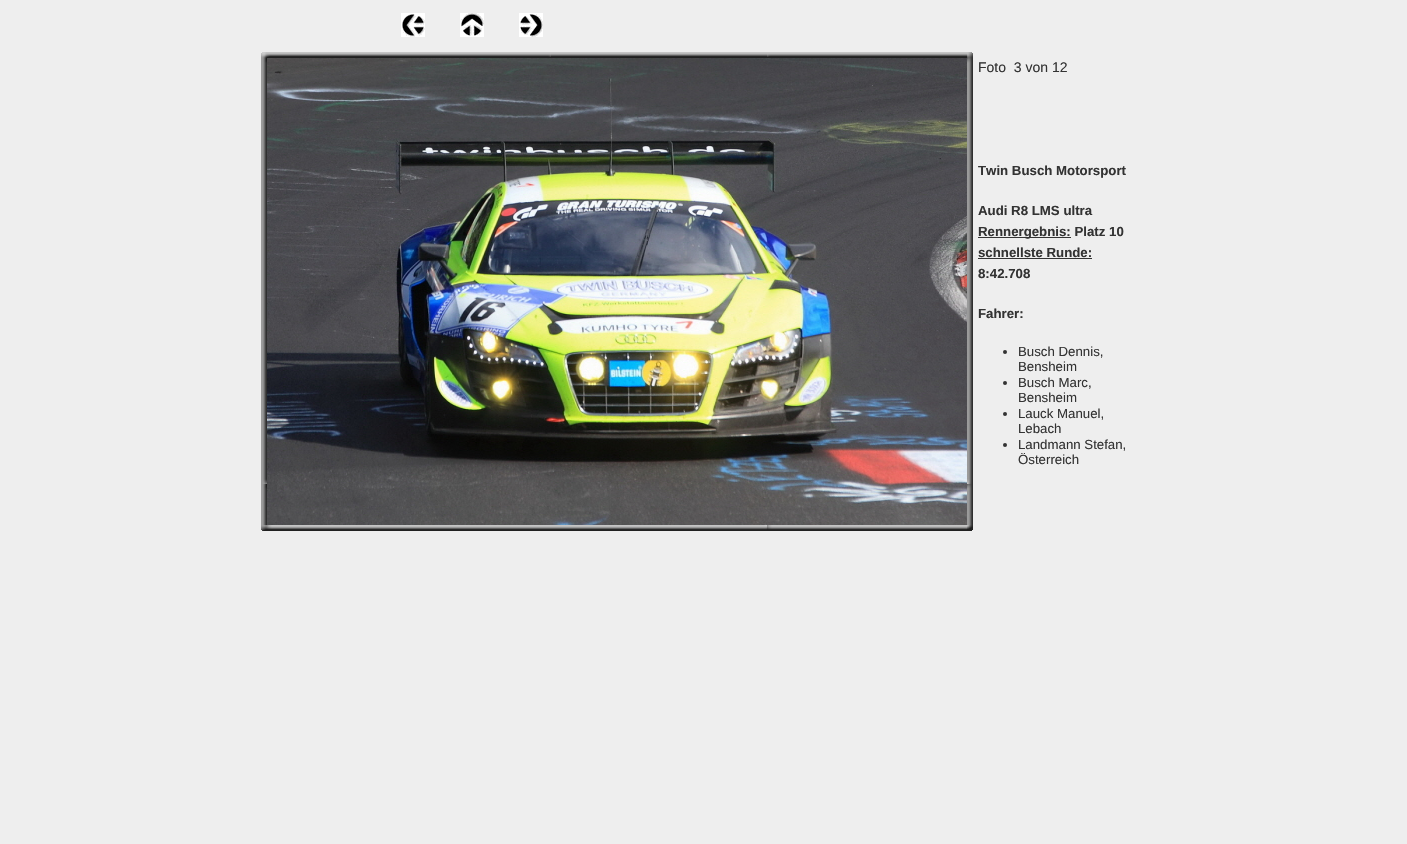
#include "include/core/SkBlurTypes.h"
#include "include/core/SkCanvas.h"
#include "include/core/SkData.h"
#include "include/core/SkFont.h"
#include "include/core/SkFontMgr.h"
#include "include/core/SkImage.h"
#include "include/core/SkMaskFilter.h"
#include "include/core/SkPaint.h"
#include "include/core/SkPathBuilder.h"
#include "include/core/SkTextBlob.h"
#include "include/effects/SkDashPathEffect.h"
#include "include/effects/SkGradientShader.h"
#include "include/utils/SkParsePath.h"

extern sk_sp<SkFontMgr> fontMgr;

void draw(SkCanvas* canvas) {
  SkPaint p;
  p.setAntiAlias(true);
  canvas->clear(SkColorSetRGB(238, 238, 238));
  canvas->drawImageRect(SkImages::DeferredFromEncodedData(SkData::MakeFromFileName("images/1.png")), SkRect::MakeLTRB(401, 13, 425, 37), SkSamplingOptions());
  canvas->drawImageRect(SkImages::DeferredFromEncodedData(SkData::MakeFromFileName("images/2.png")), SkRect::MakeLTRB(460, 13, 484, 37), SkSamplingOptions());
  canvas->drawImageRect(SkImages::DeferredFromEncodedData(SkData::MakeFromFileName("images/3.png")), SkRect::MakeLTRB(519, 13, 543, 37), SkSamplingOptions());
  canvas->drawImageRect(SkImages::DeferredFromEncodedData(SkData::MakeFromFileName("images/4.png")), SkRect::MakeLTRB(261, 52, 267, 58), SkSamplingOptions());
  canvas->drawImageRect(SkImages::DeferredFromEncodedData(SkData::MakeFromFileName("images/5.png")), SkRect::MakeLTRB(267, 52, 967, 58), SkSamplingOptions());
  canvas->drawImageRect(SkImages::DeferredFromEncodedData(SkData::MakeFromFileName("images/6.png")), SkRect::MakeLTRB(967, 52, 973, 58), SkSamplingOptions());
  canvas->drawImageRect(SkImages::DeferredFromEncodedData(SkData::MakeFromFileName("images/7.png")), SkRect::MakeLTRB(261, 58, 267, 525), SkSamplingOptions());
  canvas->drawImageRect(SkImages::DeferredFromEncodedData(SkData::MakeFromFileName("images/8.png")), SkRect::MakeLTRB(267, 58, 967, 525), SkSamplingOptions());
  canvas->drawImageRect(SkImages::DeferredFromEncodedData(SkData::MakeFromFileName("images/9.png")), SkRect::MakeLTRB(967, 58, 973, 525), SkSamplingOptions());
  canvas->drawImageRect(SkImages::DeferredFromEncodedData(SkData::MakeFromFileName("images/10.png")), SkRect::MakeLTRB(261, 525, 267, 531), SkSamplingOptions());
  canvas->drawImageRect(SkImages::DeferredFromEncodedData(SkData::MakeFromFileName("images/11.png")), SkRect::MakeLTRB(267, 525, 967, 531), SkSamplingOptions());
  canvas->drawImageRect(SkImages::DeferredFromEncodedData(SkData::MakeFromFileName("images/12.png")), SkRect::MakeLTRB(967, 525, 973, 531), SkSamplingOptions());
  p.setColor(SkColorSetRGB(51, 51, 51));
  canvas->drawRect(SkRect::MakeLTRB(978, 237, 1071, 238), p);
  canvas->drawRect(SkRect::MakeLTRB(978, 258, 1092, 259), p);
  canvas->drawCircle(1005, 352, 2, p);
  canvas->drawCircle(1005, 383, 2, p);
  canvas->drawCircle(1005, 414, 2, p);
  canvas->drawCircle(1005, 445, 2, p);
  SkFont font1(fontMgr->matchFamilyStyle("Liberation Sans", SkFontStyle::Normal()), 14);
  font1.setSubpixel(true);
  canvas->drawString("Foto  3 von 12", 978, 72, font1, p);
  SkFont font2(fontMgr->matchFamilyStyle("Liberation Sans", SkFontStyle::Bold()), 13.25f);
  font2.setSubpixel(true);
  canvas->drawString("Twin Busch Motorsport", 978, 175, font2, p);
  canvas->drawString("Audi R8 LMS ultra", 978, 215, font2, p);
  canvas->drawString("Rennergebnis: Platz 10", 978, 236, font2, p);
  canvas->drawString("schnellste Runde:", 978, 257, font2, p);
  canvas->drawString("8:42.708", 978, 278, font2, p);
  canvas->drawString("Fahrer:", 978, 318, font2, p);
  SkFont font3(fontMgr->matchFamilyStyle("Liberation Sans", SkFontStyle::Normal()), 13.25f);
  font3.setSubpixel(true);
  canvas->drawString("Busch Dennis,", 1018, 356, font3, p);
  canvas->drawString("Bensheim", 1018, 371, font3, p);
  canvas->drawString("Busch Marc,", 1018, 387, font3, p);
  canvas->drawString("Bensheim", 1018, 402, font3, p);
  canvas->drawString("Lauck Manuel,", 1018, 418, font3, p);
  canvas->drawString("Lebach", 1018, 433, font3, p);
  canvas->drawString("Landmann Stefan,", 1018, 449, font3, p);
  canvas->drawString("Österreich", 1018, 464, font3, p);
}
